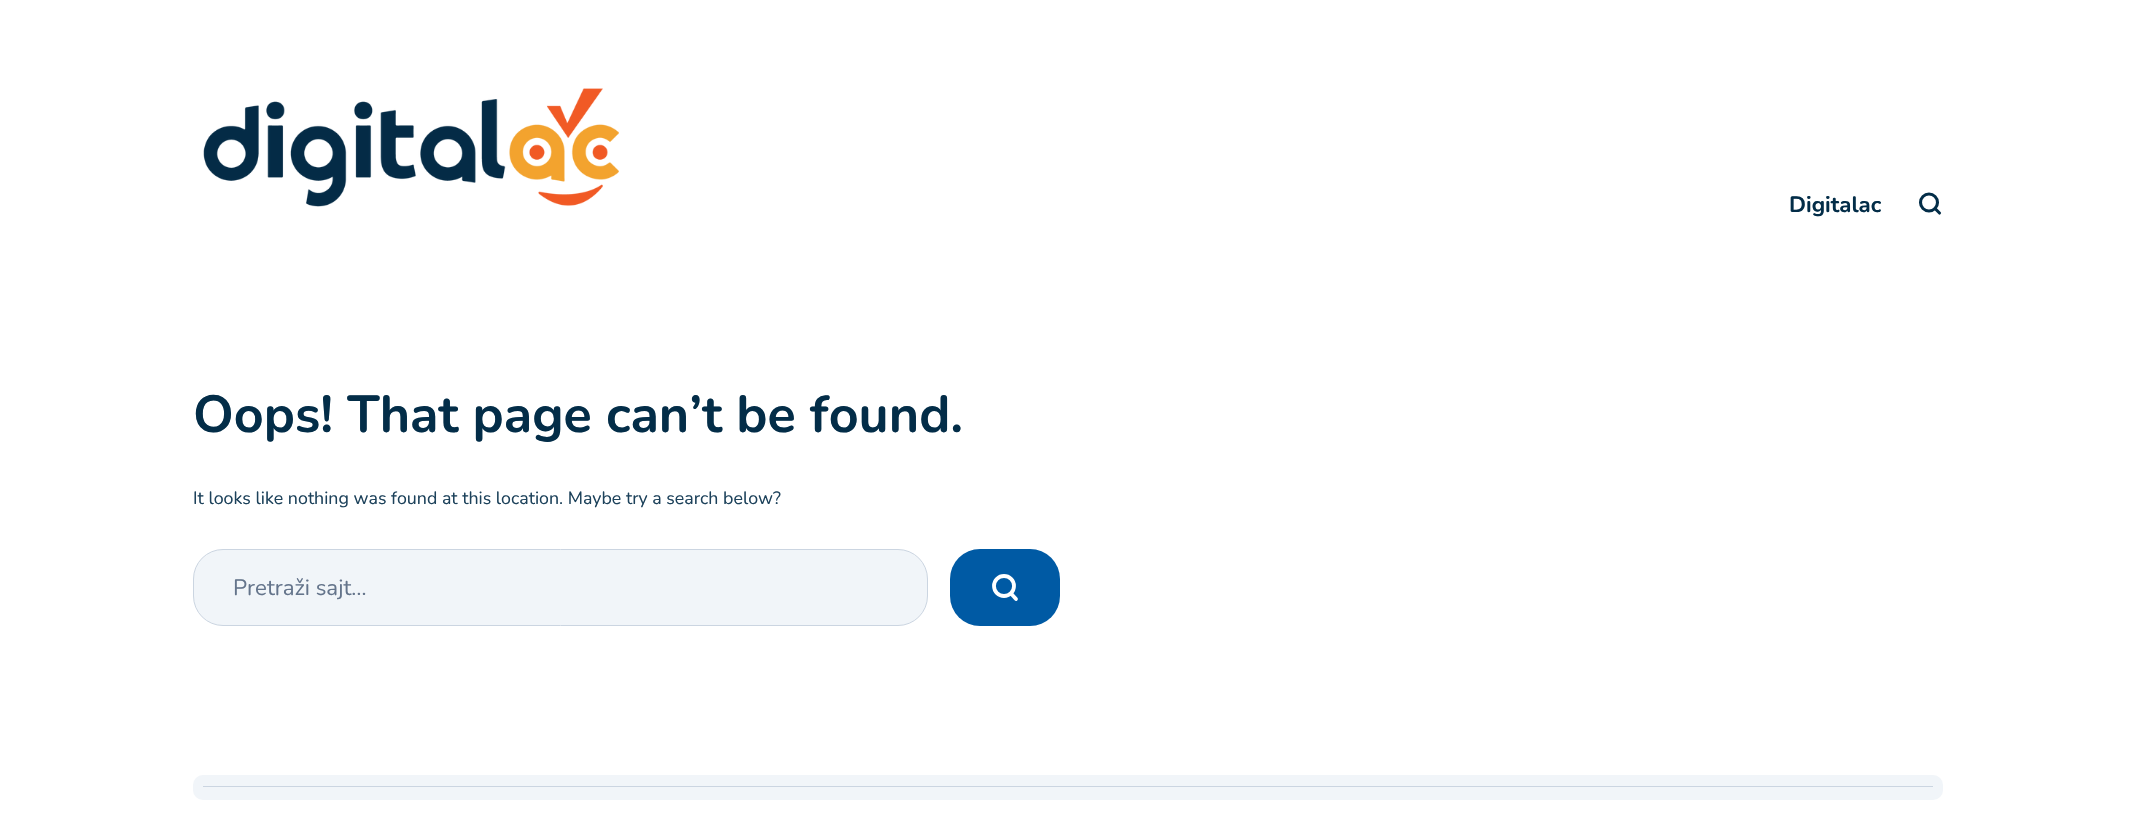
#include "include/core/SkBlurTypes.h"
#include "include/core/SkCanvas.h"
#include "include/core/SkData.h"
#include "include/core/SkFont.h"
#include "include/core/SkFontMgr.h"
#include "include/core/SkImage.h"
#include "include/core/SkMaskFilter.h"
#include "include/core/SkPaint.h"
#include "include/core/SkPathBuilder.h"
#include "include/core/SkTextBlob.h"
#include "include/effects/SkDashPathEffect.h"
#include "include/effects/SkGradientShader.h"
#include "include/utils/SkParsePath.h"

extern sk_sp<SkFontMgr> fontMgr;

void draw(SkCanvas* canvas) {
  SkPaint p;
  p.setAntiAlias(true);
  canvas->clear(SK_ColorWHITE);
  canvas->drawImageRect(SkImages::DeferredFromEncodedData(SkData::MakeFromFileName("images/1.png")), SkRect::MakeLTRB(203, 88, 619, 207), SkSamplingOptions());
  p.setStyle(SkPaint::kStroke_Style);
  p.setStrokeWidth(3.1f);
  p.setColor(SkColorSetRGB(3, 45, 72));
  canvas->drawCircle(1929, 202.5f, 8.5f, p);
  p.setStrokeCap(SkPaint::kRound_Cap);
  p.setStrokeJoin(SkPaint::kRound_Join);
  canvas->drawPath(SkPathBuilder().moveTo(1939.5f, 213).lineTo(1935, 208.5f).detach(), p);
  p.setStyle(SkPaint::kFill_Style);
  p.setColor(SkColorSetRGB(241, 245, 249));
  canvas->drawRoundRect(SkRect::MakeLTRB(193.5f, 549.5f, 927.5f, 625.5f), 29.5f, 29.5f, p);
  p.setStyle(SkPaint::kStroke_Style);
  p.setStrokeWidth(1);
  p.setStrokeCap(SkPaint::kButt_Cap);
  p.setStrokeJoin(SkPaint::kMiter_Join);
  p.setColor(SkColorSetRGB(203, 213, 225));
  canvas->drawRoundRect(SkRect::MakeLTRB(193.5f, 549.5f, 927.5f, 625.5f), 29.5f, 29.5f, p);
  p.setStyle(SkPaint::kFill_Style);
  p.setColor(SkColorSetRGB(0, 90, 164));
  canvas->drawRoundRect(SkRect::MakeLTRB(950, 549, 1060, 626), 30, 30, p);
  p.setStyle(SkPaint::kStroke_Style);
  p.setStrokeWidth(3.8f);
  p.setColor(SK_ColorWHITE);
  canvas->drawCircle(1004, 586, 10, p);
  p.setStrokeCap(SkPaint::kRound_Cap);
  p.setStrokeJoin(SkPaint::kRound_Join);
  canvas->drawPath(SkPathBuilder().moveTo(1016, 599).lineTo(1011, 593.5f).detach(), p);
  p.setStyle(SkPaint::kFill_Style);
  p.setColor(SkColorSetRGB(241, 245, 249));
  canvas->drawRoundRect(SkRect::MakeLTRB(193, 775, 1943, 800), 10, 10, p);
  p.setColor(SkColorSetRGB(203, 213, 225));
  canvas->drawRect(SkRect::MakeLTRB(203, 786, 1933, 787), p);
  SkFont font1(fontMgr->matchFamilyStyle("Nunito", SkFontStyle::Bold()), 22.25f);
  font1.setSubpixel(true);
  p.setColor(SkColorSetRGB(3, 45, 72));
  canvas->drawString("Digitalac", 1789, 212, font1, p);
  SkFont font2(fontMgr->matchFamilyStyle("Nunito", SkFontStyle::Bold()), 52);
  font2.setSubpixel(true);
  canvas->drawString("Oops! That page can’t be found.", 193, 432, font2, p);
  SkFont font3(fontMgr->matchFamilyStyle("Nunito", SkFontStyle::Normal()), 17.8f);
  font3.setSubpixel(true);
  p.setColor(SkColorSetRGB(29, 66, 91));
  canvas->drawString("It looks like nothing was found at this location. Maybe try a search below?", 193, 504, font3, p);
  SkFont font4(fontMgr->matchFamilyStyle("Nunito", SkFontStyle::Normal()), 22.25f);
  font4.setSubpixel(true);
  p.setColor(SkColorSetRGB(100, 116, 139));
  canvas->drawString("Pretraži sajt…", 233, 595, font4, p);
}
